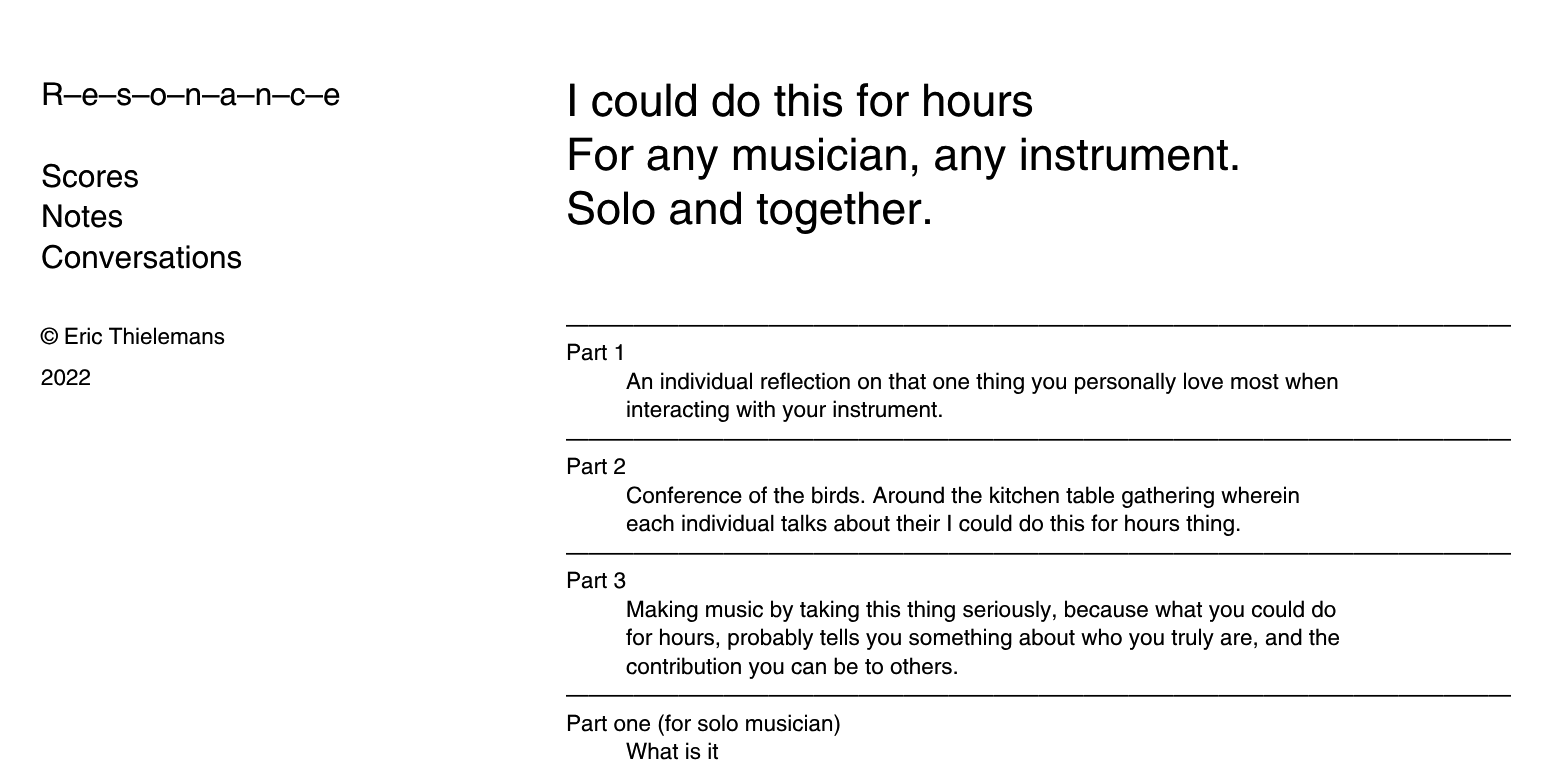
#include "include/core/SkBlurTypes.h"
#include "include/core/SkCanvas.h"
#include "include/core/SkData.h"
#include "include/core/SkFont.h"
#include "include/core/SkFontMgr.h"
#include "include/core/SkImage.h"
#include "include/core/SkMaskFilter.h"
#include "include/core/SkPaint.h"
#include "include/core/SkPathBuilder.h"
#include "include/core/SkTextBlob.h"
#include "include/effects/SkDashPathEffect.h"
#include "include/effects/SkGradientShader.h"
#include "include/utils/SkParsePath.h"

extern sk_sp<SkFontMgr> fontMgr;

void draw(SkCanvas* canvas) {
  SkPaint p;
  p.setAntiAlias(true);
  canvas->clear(SK_ColorWHITE);
  SkFont font1(fontMgr->matchFamilyStyle("helvetica", SkFontStyle::Normal()), 31.5f);
  font1.setSubpixel(true);
  p.setColor(SK_ColorBLACK);
  canvas->drawString("R–e–s–o–n–a–n–c–e", 41, 105, font1, p);
  canvas->drawString("Scores", 41, 187, font1, p);
  canvas->drawString("Notes", 41, 227, font1, p);
  canvas->drawString("Conversations", 41, 268, font1, p);
  SkFont font2(fontMgr->matchFamilyStyle("helvetica", SkFontStyle::Normal()), 22.5f);
  font2.setSubpixel(true);
  canvas->drawString("© Eric Thielemans", 41, 344, font2, p);
  canvas->drawString("2022", 41, 385, font2, p);
  SkFont font3(fontMgr->matchFamilyStyle("helvetica", SkFontStyle::Normal()), 45);
  font3.setSubpixel(true);
  canvas->drawString("I could do this for hours", 566, 116, font3, p);
  canvas->drawString("For any musician, any instrument.", 566, 170, font3, p);
  canvas->drawString("Solo and together.", 566, 224, font3, p);
  canvas->drawString("——————————————————————————————————————————", 566, 332, font2, p);
  canvas->drawString("Part 1", 566, 360, font2, p);
  canvas->drawString("An individual reflection on that one thing you personally love most when", 626, 389, font2, p);
  canvas->drawString("interacting with your instrument.", 626, 417, font2, p);
  canvas->drawString("——————————————————————————————————————————", 566, 446, font2, p);
  canvas->drawString("Part 2", 566, 474, font2, p);
  canvas->drawString("Conference of the birds. Around the kitchen table gathering wherein", 626, 503, font2, p);
  canvas->drawString("each individual talks about their I could do this for hours thing.", 626, 531, font2, p);
  canvas->drawString("——————————————————————————————————————————", 566, 560, font2, p);
  canvas->drawString("Part 3", 566, 588, font2, p);
  canvas->drawString("Making music by taking this thing seriously, because what you could do", 626, 617, font2, p);
  canvas->drawString("for hours, probably tells you something about who you truly are, and the", 626, 645, font2, p);
  canvas->drawString("contribution you can be to others.", 626, 674, font2, p);
  canvas->drawString("——————————————————————————————————————————", 566, 702, font2, p);
  canvas->drawString("Part one (for solo musician)", 566, 731, font2, p);
  canvas->drawString("What is it", 626, 759, font2, p);
}
